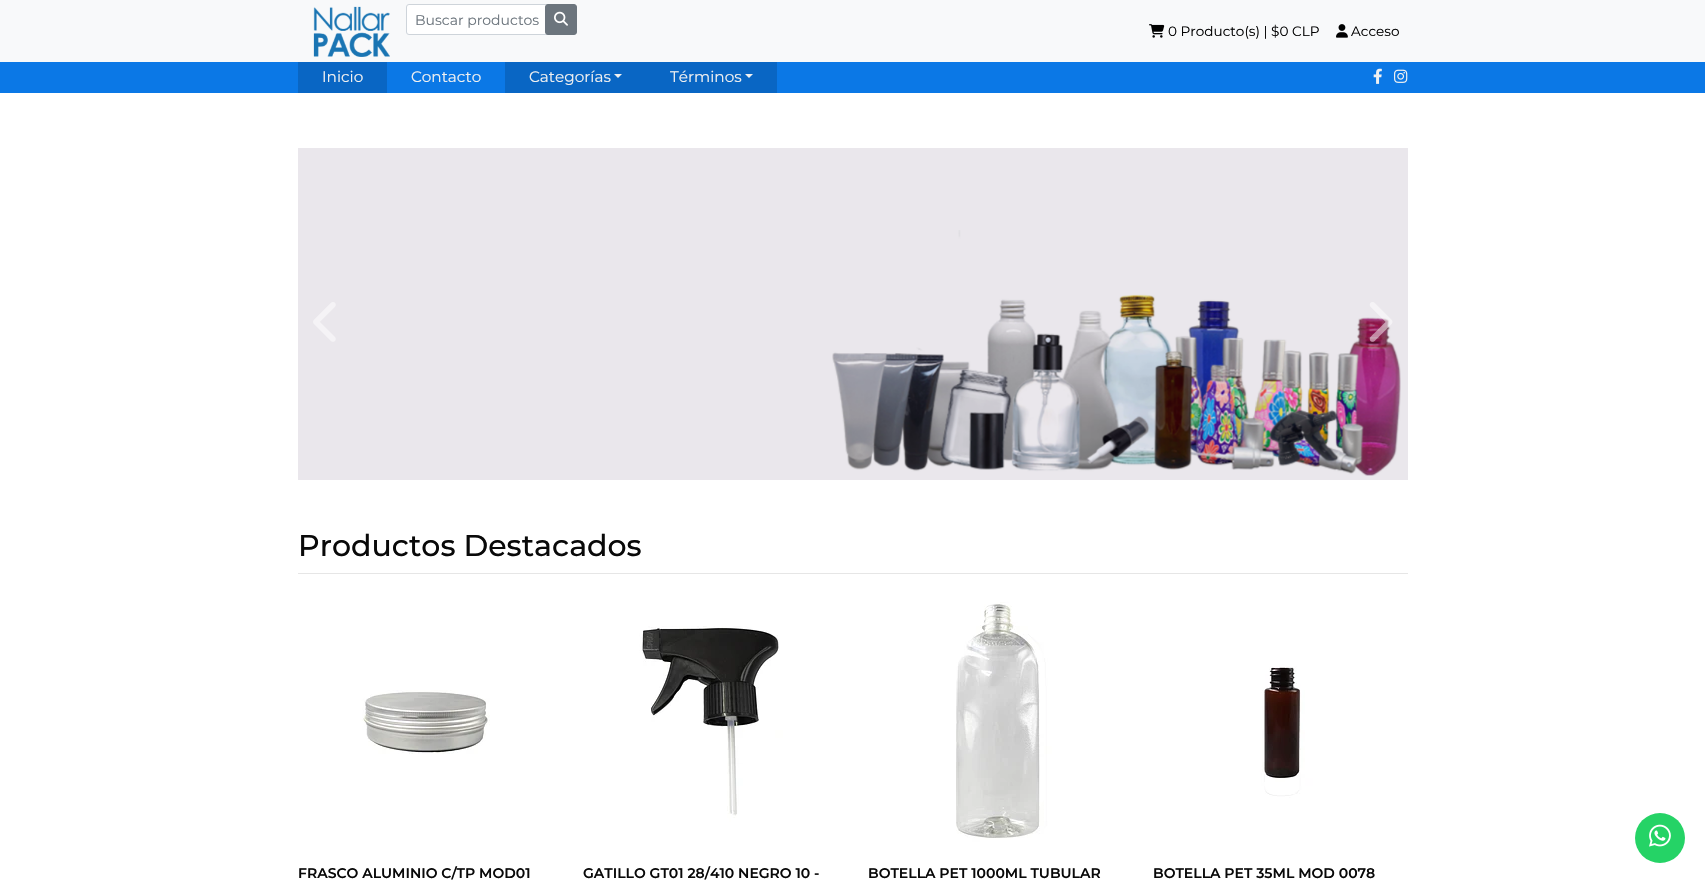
#include "include/core/SkBlurTypes.h"
#include "include/core/SkCanvas.h"
#include "include/core/SkData.h"
#include "include/core/SkFont.h"
#include "include/core/SkFontMgr.h"
#include "include/core/SkImage.h"
#include "include/core/SkMaskFilter.h"
#include "include/core/SkPaint.h"
#include "include/core/SkPathBuilder.h"
#include "include/core/SkTextBlob.h"
#include "include/effects/SkDashPathEffect.h"
#include "include/effects/SkGradientShader.h"
#include "include/utils/SkParsePath.h"

extern sk_sp<SkFontMgr> fontMgr;

void draw(SkCanvas* canvas) {
  SkPaint p;
  p.setAntiAlias(true);
  canvas->clear(SK_ColorWHITE);
  p.setColor(SkColorSetRGB(234, 231, 236));
  canvas->drawRect(SkRect::MakeLTRB(298, 148, 1408, 480), p);
  p.setColor(SkColorSetRGB(248, 249, 250));
  canvas->drawRect(SkRect::MakeLTRB(0, 0, 1705, 62), p);
  canvas->drawImageRect(SkImages::DeferredFromEncodedData(SkData::MakeFromFileName("images/1.png")), SkRect::MakeLTRB(313, 6, 390, 57), SkSamplingOptions());
  p.setColor(SK_ColorWHITE);
  canvas->drawRoundRect(SkRect::MakeLTRB(406.5f, 4.5f, 555.5f, 34.5f), 2.5f, 2.5f, p);
  p.setStyle(SkPaint::kStroke_Style);
  p.setStrokeWidth(1);
  p.setColor(SkColorSetRGB(206, 212, 218));
  canvas->drawRoundRect(SkRect::MakeLTRB(406.5f, 4.5f, 555.5f, 34.5f), 2.5f, 2.5f, p);
  p.setStyle(SkPaint::kFill_Style);
  p.setColor(SkColorSetRGB(108, 117, 125));
  canvas->drawRoundRect(SkRect::MakeLTRB(545.5f, 4.5f, 576.5f, 34.5f), 2.5f, 2.5f, p);
  p.setStyle(SkPaint::kStroke_Style);
  canvas->drawRoundRect(SkRect::MakeLTRB(545.5f, 4.5f, 576.5f, 34.5f), 2.5f, 2.5f, p);
  canvas->drawImageRect(SkImages::DeferredFromEncodedData(SkData::MakeFromFileName("images/2.png")), SkRect::MakeLTRB(554, 11, 568, 26), SkSamplingOptions());
  canvas->drawImageRect(SkImages::DeferredFromEncodedData(SkData::MakeFromFileName("images/3.png")), SkRect::MakeLTRB(1149, 24, 1165, 38), SkSamplingOptions());
  canvas->drawImageRect(SkImages::DeferredFromEncodedData(SkData::MakeFromFileName("images/4.png")), SkRect::MakeLTRB(1336, 24, 1348, 38), SkSamplingOptions());
  p.setStyle(SkPaint::kFill_Style);
  p.setColor(SkColorSetRGB(11, 120, 230));
  canvas->drawRect(SkRect::MakeLTRB(0, 62, 1705, 93), p);
  p.setColor(SkColorSetRGB(9, 102, 196));
  canvas->drawRect(SkRect::MakeLTRB(298, 62, 387, 93), p);
  canvas->drawRect(SkRect::MakeLTRB(505, 62, 777, 93), p);
  p.setColor(SkColorSetRGB(241, 241, 241));
  canvas->drawPath(SkPathBuilder().moveTo(614, 74).lineTo(622, 74).lineTo(618, 78).close().detach(), p);
  canvas->drawPath(SkPathBuilder().moveTo(745, 74).lineTo(753, 74).lineTo(749, 78).close().detach(), p);
  canvas->drawImageRect(SkImages::DeferredFromEncodedData(SkData::MakeFromFileName("images/5.png")), SkRect::MakeLTRB(1373, 68, 1382, 84), SkSamplingOptions());
  canvas->drawImageRect(SkImages::DeferredFromEncodedData(SkData::MakeFromFileName("images/6.png")), SkRect::MakeLTRB(1394, 69, 1408, 83), SkSamplingOptions());
  canvas->drawImageRect(SkImages::DeferredFromEncodedData(SkData::MakeFromFileName("images/7.png")), SkRect::MakeLTRB(832, 230, 1401, 476), SkSamplingOptions());
  canvas->drawImageRect(SkImages::DeferredFromEncodedData(SkData::MakeFromFileName("images/8.png")), SkRect::MakeLTRB(313, 302, 336, 342), SkSamplingOptions());
  canvas->drawImageRect(SkImages::DeferredFromEncodedData(SkData::MakeFromFileName("images/9.png")), SkRect::MakeLTRB(1369, 302, 1393, 342), SkSamplingOptions());
  p.setColor(SkColorSetRGB(230, 230, 230));
  canvas->drawRect(SkRect::MakeLTRB(298, 573, 1408, 574), p);
  canvas->drawImageRect(SkImages::DeferredFromEncodedData(SkData::MakeFromFileName("images/10.png")), SkRect::MakeLTRB(298, 594, 553, 849), SkSamplingOptions());
  canvas->drawImageRect(SkImages::DeferredFromEncodedData(SkData::MakeFromFileName("images/11.png")), SkRect::MakeLTRB(583, 594, 838, 849), SkSamplingOptions());
  canvas->drawImageRect(SkImages::DeferredFromEncodedData(SkData::MakeFromFileName("images/12.png")), SkRect::MakeLTRB(868, 594, 1123, 849), SkSamplingOptions());
  canvas->drawImageRect(SkImages::DeferredFromEncodedData(SkData::MakeFromFileName("images/13.png")), SkRect::MakeLTRB(1153, 594, 1408, 849), SkSamplingOptions());
  p.setColor(SkColorSetRGB(37, 211, 102));
  canvas->drawCircle(1660, 838, 25, p);
  canvas->drawImageRect(SkImages::DeferredFromEncodedData(SkData::MakeFromFileName("images/14.png")), SkRect::MakeLTRB(1649, 824, 1671, 847), SkSamplingOptions());
  SkFont font1(fontMgr->matchFamilyStyle("Montserrat", SkFontStyle::Normal()), 14);
  font1.setSubpixel(true);
  p.setColor(SkColorSetRGB(108, 117, 125));
  canvas->drawString("Buscar productos", 415, 25, font1, p);
  SkFont font2(fontMgr->matchFamilyStyle("Montserrat", SkFontStyle::Normal()), 13.6f);
  font2.setSubpixel(true);
  p.setColor(SkColorSetRGB(1, 1, 1));
  canvas->drawString("0 Producto(s) | $0 CLP", 1168, 36, font2, p);
  canvas->drawString("Acceso", 1351, 36, font2, p);
  SkFont font3(fontMgr->matchFamilyStyle("Montserrat", SkFontStyle::Normal()), 15.25f);
  font3.setSubpixel(true);
  p.setColor(SkColorSetRGB(241, 241, 241));
  canvas->drawString("Inicio", 322, 82, font3, p);
  canvas->drawString("Contacto", 411, 82, font3, p);
  canvas->drawString("Categorías", 529, 82, font3, p);
  canvas->drawString("Términos", 670, 82, font3, p);
  SkFont font4(fontMgr->matchFamilyStyle("Montserrat", SkFontStyle(500, SkFontStyle::kNormal_Width, SkFontStyle::kUpright_Slant)), 30);
  font4.setSubpixel(true);
  p.setColor(SkColorSetRGB(9, 9, 9));
  canvas->drawString("Productos Destacados", 298, 556, font4, p);
  SkFont font5(fontMgr->matchFamilyStyle("Montserrat", SkFontStyle(600, SkFontStyle::kNormal_Width, SkFontStyle::kUpright_Slant)), 14);
  font5.setSubpixel(true);
  canvas->drawString("FRASCO ALUMINIO C/TP MOD01", 298, 878, font5, p);
  canvas->drawString("GATILLO GT01 28/410 NEGRO 10 -", 583, 878, font5, p);
  canvas->drawString("BOTELLA PET 1000ML TUBULAR", 868, 878, font5, p);
  canvas->drawString("BOTELLA PET 35ML MOD 0078", 1153, 878, font5, p);
}
